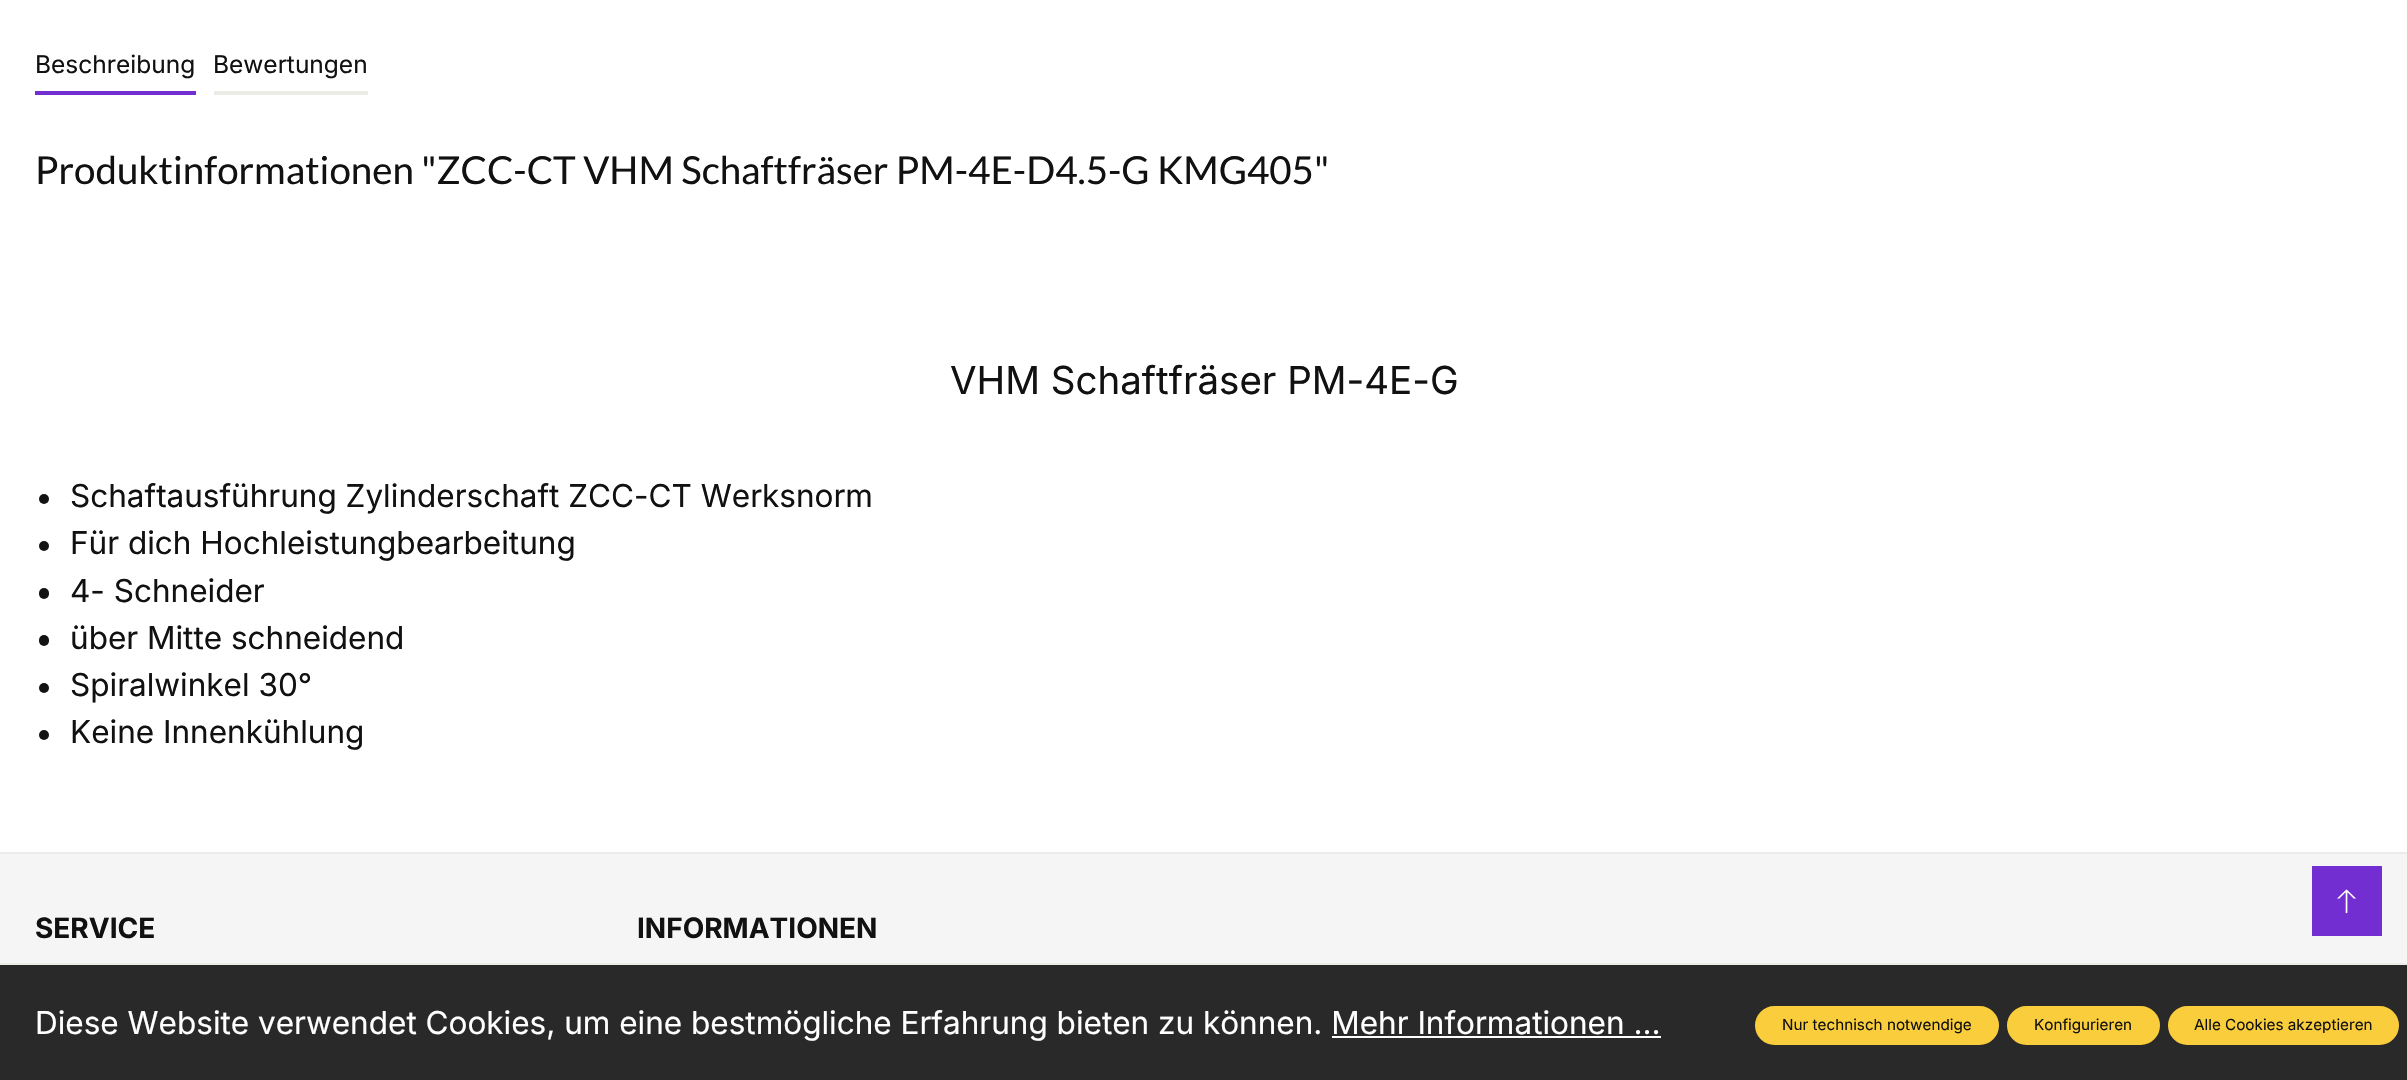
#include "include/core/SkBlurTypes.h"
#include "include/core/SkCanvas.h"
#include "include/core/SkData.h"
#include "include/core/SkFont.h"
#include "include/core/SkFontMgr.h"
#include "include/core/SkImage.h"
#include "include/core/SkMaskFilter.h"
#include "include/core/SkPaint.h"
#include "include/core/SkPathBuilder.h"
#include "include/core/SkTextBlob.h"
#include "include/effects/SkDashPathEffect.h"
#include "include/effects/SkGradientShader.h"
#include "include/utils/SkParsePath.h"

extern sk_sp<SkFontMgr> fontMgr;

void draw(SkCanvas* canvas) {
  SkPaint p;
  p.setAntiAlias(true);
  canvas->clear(SK_ColorWHITE);
  p.setColor(SkColorSetRGB(114, 46, 209));
  canvas->drawRect(SkRect::MakeLTRB(35, 91, 196, 95), p);
  p.setColor(SkColorSetRGB(236, 236, 231));
  canvas->drawRect(SkRect::MakeLTRB(214, 91, 368, 95), p);
  p.setColor(SkColorSetRGB(19, 19, 19));
  canvas->drawCircle(44, 499, 5, p);
  canvas->drawCircle(44, 546, 5, p);
  canvas->drawRoundRect(SkRect::MakeLTRB(39, 588, 49, 599), 5, 5, p);
  canvas->drawRoundRect(SkRect::MakeLTRB(39, 635, 49, 646), 5, 5, p);
  canvas->drawCircle(44, 688, 5, p);
  canvas->drawCircle(44, 735, 5, p);
  p.setColor(SkColorSetRGB(245, 245, 245));
  canvas->drawRect(SkRect::MakeLTRB(0, 854, 2407, 963), p);
  p.setColor(SkColorSetRGB(235, 235, 235));
  canvas->drawRect(SkRect::MakeLTRB(0, 852, 2407, 854), p);
  p.setColor(SkColorSetRGB(114, 46, 209));
  canvas->drawRect(SkRect::MakeLTRB(2312, 866, 2382, 936), p);
  canvas->drawImageRect(SkImages::DeferredFromEncodedData(SkData::MakeFromFileName("images/1.png")), SkRect::MakeLTRB(2337, 889, 2356, 914), SkSamplingOptions());
  p.setColor(SkColorSetRGB(41, 41, 41));
  canvas->drawRect(SkRect::MakeLTRB(0, 965, 2407, 1080), p);
  p.setColor(SkColorSetRGB(236, 236, 231));
  canvas->drawRect(SkRect::MakeLTRB(0, 963, 2407, 965), p);
  p.setColor(SK_ColorWHITE);
  canvas->drawRect(SkRect::MakeLTRB(1332, 1036, 1661, 1038), p);
  p.setColor(SkColorSetRGB(249, 205, 59));
  canvas->drawRoundRect(SkRect::MakeLTRB(1756, 1007, 1998, 1044), 18.5f, 18.5f, p);
  p.setStyle(SkPaint::kStroke_Style);
  p.setStrokeWidth(2);
  canvas->drawRoundRect(SkRect::MakeLTRB(1756, 1007, 1998, 1044), 18.5f, 18.5f, p);
  p.setStyle(SkPaint::kFill_Style);
  canvas->drawRoundRect(SkRect::MakeLTRB(2008, 1007, 2159, 1044), 18.5f, 18.5f, p);
  p.setStyle(SkPaint::kStroke_Style);
  canvas->drawRoundRect(SkRect::MakeLTRB(2008, 1007, 2159, 1044), 18.5f, 18.5f, p);
  p.setStyle(SkPaint::kFill_Style);
  canvas->drawRoundRect(SkRect::MakeLTRB(2169, 1007, 2398, 1044), 18.5f, 18.5f, p);
  p.setStyle(SkPaint::kStroke_Style);
  canvas->drawRoundRect(SkRect::MakeLTRB(2169, 1007, 2398, 1044), 18.5f, 18.5f, p);
  SkFont font1(fontMgr->matchFamilyStyle("Inter", SkFontStyle::Normal()), 24.5f);
  font1.setSubpixel(true);
  p.setStyle(SkPaint::kFill_Style);
  p.setColor(SkColorSetRGB(17, 17, 17));
  canvas->drawString("Beschreibung", 35, 73, font1, p);
  canvas->drawString("Bewertungen", 213, 73, font1, p);
  SkFont font2(fontMgr->matchFamilyStyle("Lato", SkFontStyle::Normal()), 38.5f);
  font2.setSubpixel(true);
  canvas->drawString("Produktinformationen \"ZCC-CT VHM Schaftfräser PM-4E-D4.5-G KMG405\"", 35, 184, font2, p);
  SkFont font3(fontMgr->matchFamilyStyle("Inter", SkFontStyle::Normal()), 38.5f);
  font3.setSubpixel(true);
  canvas->drawString("VHM Schaftfräser PM-4E-G", 950, 394, font3, p);
  SkFont font4(fontMgr->matchFamilyStyle("Inter", SkFontStyle::Normal()), 31.5f);
  font4.setSubpixel(true);
  canvas->drawString("Schaftausführung Zylinderschaft ZCC-CT Werksnorm", 70, 507, font4, p);
  canvas->drawString("Für dich Hochleistungbearbeitung", 70, 554, font4, p);
  canvas->drawString("4- Schneider", 70, 602, font4, p);
  canvas->drawString("über Mitte schneidend", 70, 649, font4, p);
  canvas->drawString("Spiralwinkel 30°", 70, 696, font4, p);
  canvas->drawString("Keine Innenkühlung", 70, 743, font4, p);
  SkFont font5(fontMgr->matchFamilyStyle("Inter", SkFontStyle::Bold()), 28);
  font5.setSubpixel(true);
  canvas->drawString("SERVICE", 35, 938, font5, p);
  canvas->drawString("INFORMATIONEN", 637, 938, font5, p);
  p.setColor(SK_ColorWHITE);
  canvas->drawString("Diese Website verwendet Cookies, um eine bestmögliche Erfahrung bieten zu können. Mehr Informationen ...", 35, 1034, font4, p);
  SkFont font6(fontMgr->matchFamilyStyle("Inter", SkFontStyle::Normal()), 15.25f);
  font6.setSubpixel(true);
  p.setColor(SkColorSetRGB(17, 17, 17));
  canvas->drawString("Nur technisch notwendige", 1782, 1030, font6, p);
  canvas->drawString("Konfigurieren", 2034, 1030, font6, p);
  canvas->drawString("Alle Cookies akzeptieren", 2194, 1030, font6, p);
}
